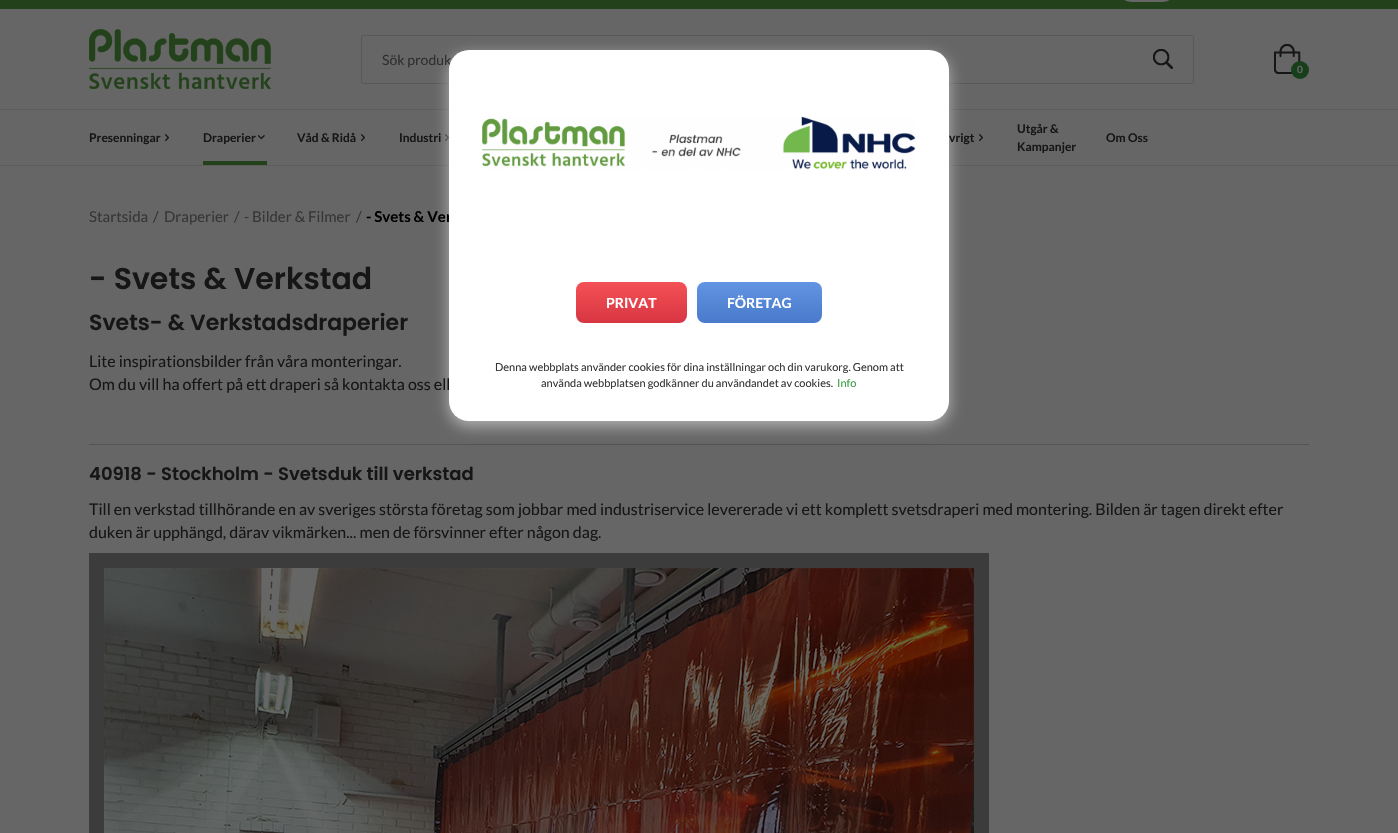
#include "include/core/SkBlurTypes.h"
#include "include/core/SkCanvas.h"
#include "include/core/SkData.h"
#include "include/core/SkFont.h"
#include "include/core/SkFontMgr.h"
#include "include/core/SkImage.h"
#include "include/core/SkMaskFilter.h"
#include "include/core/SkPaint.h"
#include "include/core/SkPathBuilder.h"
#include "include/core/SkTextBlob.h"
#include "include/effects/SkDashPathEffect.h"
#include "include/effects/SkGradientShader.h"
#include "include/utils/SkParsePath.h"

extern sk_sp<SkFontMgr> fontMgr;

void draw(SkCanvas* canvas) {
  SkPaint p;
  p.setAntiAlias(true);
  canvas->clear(SkColorSetRGB(102, 102, 102));
  p.setColor(SkColorSetRGB(35, 65, 26));
  canvas->drawRect(SkRect::MakeLTRB(0, 0, 1398, 9), p);
  p.setColor(SkColorSetRGB(102, 102, 102));
  canvas->drawPath(SkPathBuilder().moveTo(1132, -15).lineTo(1147, -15).lineTo(1147, 2).lineTo(1132, 2).cubicTo(1123.5f, 2, 1117, -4.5f, 1117, -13).lineTo(1117, 0).cubicTo(1117, -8.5f, 1123.5f, -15, 1132, -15).close().detach(), p);
  canvas->drawPath(SkPathBuilder().moveTo(1147, -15).lineTo(1162, -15).cubicTo(1170.5f, -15, 1177, -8.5f, 1177, 0).lineTo(1177, -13).cubicTo(1177, -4.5f, 1170.5f, 2, 1162, 2).lineTo(1147, 2).close().detach(), p);
  p.setColor(SkColorSetRGB(92, 92, 92));
  canvas->drawRect(SkRect::MakeLTRB(0, 109, 1398, 110), p);
  canvas->drawImageRect(SkImages::DeferredFromEncodedData(SkData::MakeFromFileName("images/1.png")), SkRect::MakeLTRB(89, 29, 271, 89), SkSamplingOptions());
  p.setStyle(SkPaint::kStroke_Style);
  p.setStrokeWidth(1);
  p.setColor(SkColorSetRGB(88, 88, 88));
  canvas->drawRoundRect(SkRect::MakeLTRB(361.5f, 35.5f, 1193.5f, 83.5f), 1.5f, 1.5f, p);
  canvas->drawImageRect(SkImages::DeferredFromEncodedData(SkData::MakeFromFileName("images/2.png")), SkRect::MakeLTRB(1153, 49, 1173, 69), SkSamplingOptions());
  canvas->drawImageRect(SkImages::DeferredFromEncodedData(SkData::MakeFromFileName("images/3.png")), SkRect::MakeLTRB(1274, 44, 1301, 74), SkSamplingOptions());
  p.setStyle(SkPaint::kFill_Style);
  p.setColor(SkColorSetRGB(23, 63, 28));
  canvas->drawCircle(1300, 70, 9, p);
  p.setColor(SkColorSetRGB(92, 92, 92));
  canvas->drawRect(SkRect::MakeLTRB(0, 165, 1398, 166), p);
  canvas->drawImageRect(SkImages::DeferredFromEncodedData(SkData::MakeFromFileName("images/4.png")), SkRect::MakeLTRB(165, 134, 169, 141), SkSamplingOptions());
  p.setColor(SkColorSetRGB(35, 65, 26));
  canvas->drawRect(SkRect::MakeLTRB(203, 161, 267, 165), p);
  canvas->drawImageRect(SkImages::DeferredFromEncodedData(SkData::MakeFromFileName("images/5.png")), SkRect::MakeLTRB(257, 135, 265, 140), SkSamplingOptions());
  canvas->drawImageRect(SkImages::DeferredFromEncodedData(SkData::MakeFromFileName("images/4.png")), SkRect::MakeLTRB(361, 134, 365, 141), SkSamplingOptions());
  canvas->drawImageRect(SkImages::DeferredFromEncodedData(SkData::MakeFromFileName("images/4.png")), SkRect::MakeLTRB(445, 134, 449, 141), SkSamplingOptions());
  canvas->drawImageRect(SkImages::DeferredFromEncodedData(SkData::MakeFromFileName("images/4.png")), SkRect::MakeLTRB(979, 134, 983, 141), SkSamplingOptions());
  p.setColor(SkColorSetRGB(83, 83, 83));
  canvas->drawRect(SkRect::MakeLTRB(89, 444, 1309, 445), p);
  canvas->drawImageRect(SkImages::DeferredFromEncodedData(SkData::MakeFromFileName("images/6.png")), SkRect::MakeLTRB(89, 553, 989, 833), SkSamplingOptions());
  p.setColor(SkColorSetRGB(181, 181, 181));
  p.setMaskFilter(SkMaskFilter::MakeBlur(kNormal_SkBlurStyle, 7.5f));
  canvas->drawRoundRect(SkRect::MakeLTRB(449, 55, 949, 426), 20, 20, p);
  p.setMaskFilter(nullptr);
  SkFont font1(fontMgr->matchFamilyStyle("Lato", SkFontStyle::Normal()), 14);
  font1.setSubpixel(true);
  p.setColor(SkColorSetRGB(47, 47, 47));
  canvas->drawString("Sök produk", 382, 65, font1, p);
  SkFont font2(fontMgr->matchFamilyStyle("Lato", SkFontStyle::Bold()), 10);
  font2.setSubpixel(true);
  p.setColor(SkColorSetRGB(102, 102, 102));
  canvas->drawString("0", 1297, 73, font2, p);
  SkFont font3(fontMgr->matchFamilyStyle("Lato", SkFontStyle::Bold()), 12);
  font3.setSubpixel(true);
  p.setColor(SkColorSetRGB(22, 22, 22));
  canvas->drawString("Presenningar", 89, 142, font3, p);
  canvas->drawString("Draperier", 203, 142, font3, p);
  canvas->drawString("Våd & Ridå", 297, 142, font3, p);
  canvas->drawString("Industri", 399, 142, font3, p);
  canvas->drawString("vrigt", 949, 142, font3, p);
  canvas->drawString("Utgår &", 1017, 133, font3, p);
  canvas->drawString("Kampanjer", 1017, 151, font3, p);
  canvas->drawString("Om Oss", 1106, 142, font3, p);
  SkFont font4(fontMgr->matchFamilyStyle("Lato", SkFontStyle::Normal()), 15);
  font4.setSubpixel(true);
  p.setColor(SkColorSetRGB(54, 54, 54));
  canvas->drawString("Startsida", 89, 222, font4, p);
  canvas->drawString("/", 153, 222, font4, p);
  canvas->drawString("Draperier", 164, 222, font4, p);
  canvas->drawString("/", 234, 222, font4, p);
  canvas->drawString("- Bilder & Filmer", 244, 222, font4, p);
  canvas->drawString("/", 356, 222, font4, p);
  SkFont font5(fontMgr->matchFamilyStyle("Lato", SkFontStyle::Bold()), 15);
  font5.setSubpixel(true);
  p.setColor(SK_ColorBLACK);
  canvas->drawString("- Svets & Ver", 366, 222, font5, p);
  SkFont font6(fontMgr->matchFamilyStyle("Poppins", SkFontStyle(600, SkFontStyle::kNormal_Width, SkFontStyle::kUpright_Slant)), 30);
  font6.setSubpixel(true);
  p.setColor(SkColorSetRGB(22, 22, 22));
  canvas->drawString("- Svets & Verkstad", 89, 289, font6, p);
  SkFont font7(fontMgr->matchFamilyStyle("Poppins", SkFontStyle(600, SkFontStyle::kNormal_Width, SkFontStyle::kUpright_Slant)), 22);
  font7.setSubpixel(true);
  canvas->drawString("Svets- & Verkstadsdraperier", 89, 330, font7, p);
  SkFont font8(fontMgr->matchFamilyStyle("Lato", SkFontStyle::Normal()), 16);
  font8.setSubpixel(true);
  canvas->drawString("Lite inspirationsbilder från våra monteringar.", 89, 367, font8, p);
  canvas->drawString("Om du vill ha offert på ett draperi så kontakta oss ell", 89, 390, font8, p);
  SkFont font9(fontMgr->matchFamilyStyle("Poppins", SkFontStyle(600, SkFontStyle::kNormal_Width, SkFontStyle::kUpright_Slant)), 18);
  font9.setSubpixel(true);
  canvas->drawString("40918 - Stockholm - Svetsduk till verkstad", 89, 480, font9, p);
  canvas->drawString("Till en verkstad tillhörande en av sveriges största företag som jobbar med industriservice levererade vi ett komplett svetsdraperi med montering. Bilden är tagen direkt efter", 89, 515, font8, p);
  canvas->drawString("duken är upphängd, därav vikmärken... men de försvinner efter någon dag.", 89, 538, font8, p);
  p.setColor(SK_ColorWHITE);
  canvas->drawRoundRect(SkRect::MakeLTRB(449, 50, 949, 421), 20, 20, p);
  canvas->drawImageRect(SkImages::DeferredFromEncodedData(SkData::MakeFromFileName("images/7.png")), SkRect::MakeLTRB(482, 116, 916, 170), SkSamplingOptions());
  {
    const SkColor colors[] = {SkColorSetRGB(244, 81, 86), SkColorSetRGB(215, 53, 66)};
    const float stops[] = {0, 1};
    const SkPoint ends[] = {{632, 282}, {632, 323}};
    p.setShader(SkGradientShader::MakeLinear(ends, colors, stops, 2, SkTileMode::kClamp));
    p.setAlpha(255);
  }
  canvas->drawRoundRect(SkRect::MakeLTRB(576, 282, 687, 323), 8, 8, p);
  SkFont font10(fontMgr->matchFamilyStyle("Lato", SkFontStyle::Bold()), 14);
  font10.setSubpixel(true);
  p.setShader(nullptr);
  p.setColor(SK_ColorWHITE);
  canvas->drawString("PRIVAT", 606, 308, font10, p);
  {
    const SkColor colors[] = {SkColorSetRGB(97, 148, 226), SkColorSetRGB(73, 122, 203)};
    const float stops[] = {0, 1};
    const SkPoint ends[] = {{760, 282}, {760, 323}};
    p.setShader(SkGradientShader::MakeLinear(ends, colors, stops, 2, SkTileMode::kClamp));
    p.setAlpha(255);
  }
  canvas->drawRoundRect(SkRect::MakeLTRB(697, 282, 822, 323), 8, 8, p);
  p.setShader(nullptr);
  p.setColor(SK_ColorWHITE);
  canvas->drawString("FÖRETAG", 727, 308, font10, p);
  SkFont font11(fontMgr->matchFamilyStyle("Lato", SkFontStyle::Normal()), 11);
  font11.setSubpixel(true);
  p.setColor(SkColorSetRGB(54, 54, 54));
  canvas->drawString("Denna webbplats använder cookies för dina inställningar och din varukorg. Genom att", 495, 371, font11, p);
  canvas->drawString("använda webbplatsen godkänner du användandet av cookies.", 541, 387, font11, p);
  p.setColor(SkColorSetRGB(58, 157, 71));
  canvas->drawString("Info", 837, 387, font11, p);
}
